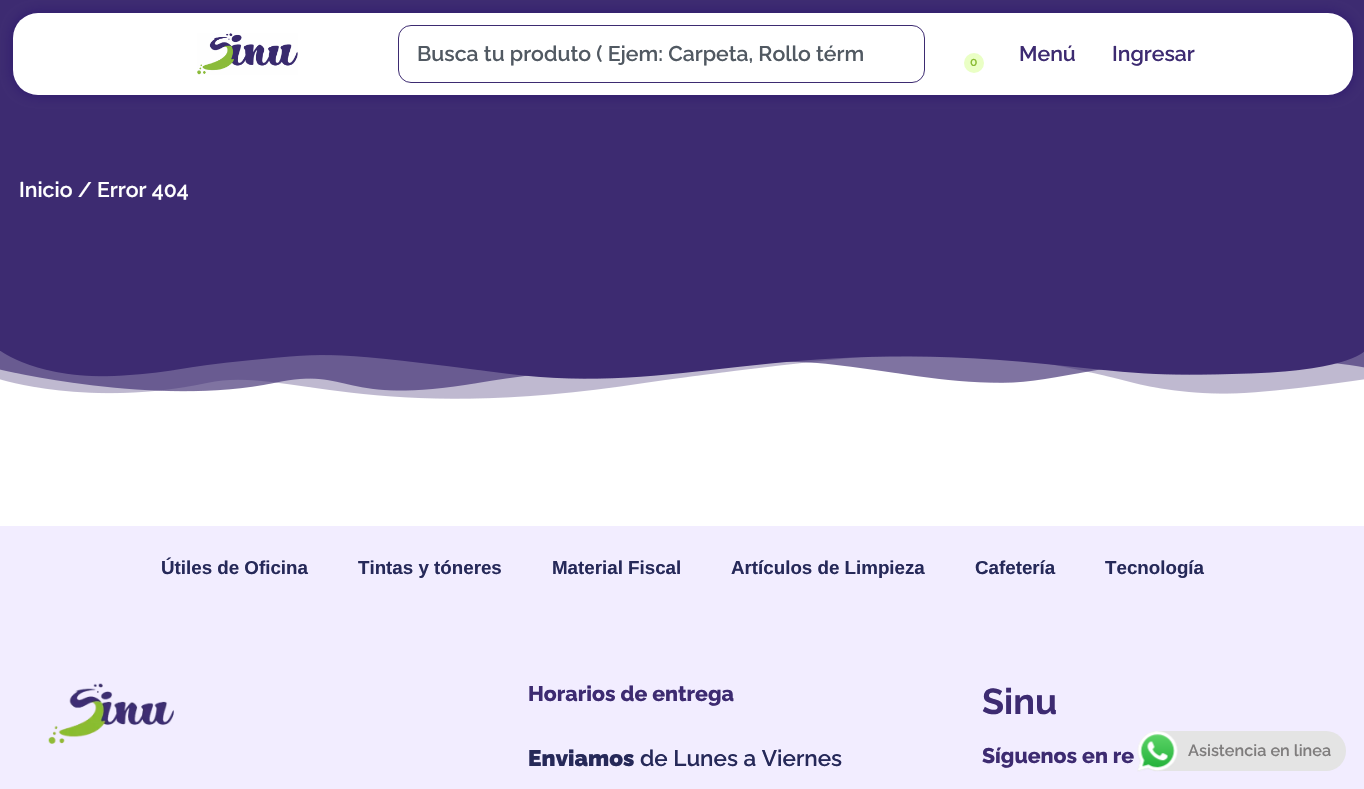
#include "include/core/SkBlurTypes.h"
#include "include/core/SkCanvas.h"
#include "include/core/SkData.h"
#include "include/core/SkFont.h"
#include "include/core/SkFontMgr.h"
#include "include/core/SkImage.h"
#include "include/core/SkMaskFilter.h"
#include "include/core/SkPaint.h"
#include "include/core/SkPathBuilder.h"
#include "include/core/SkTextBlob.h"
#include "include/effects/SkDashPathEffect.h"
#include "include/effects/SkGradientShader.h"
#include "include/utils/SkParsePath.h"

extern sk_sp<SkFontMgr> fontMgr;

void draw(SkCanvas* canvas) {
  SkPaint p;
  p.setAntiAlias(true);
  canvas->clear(SkColorSetRGB(61, 43, 113));
  p.setColor(SkColorSetARGB(171, 36, 12, 108));
  p.setMaskFilter(SkMaskFilter::MakeBlur(kNormal_SkBlurStyle, 6));
  canvas->drawRoundRect(SkRect::MakeLTRB(13, 13, 1353, 95), 25, 25, p);
  p.setMaskFilter(nullptr);
  p.setColor(SK_ColorWHITE);
  canvas->drawRoundRect(SkRect::MakeLTRB(13, 13, 1353, 95), 25, 25, p);
  canvas->drawImageRect(SkImages::DeferredFromEncodedData(SkData::MakeFromFileName("images/1.png")), SkRect::MakeLTRB(197, 33, 298, 75), SkSamplingOptions());
  p.setStyle(SkPaint::kStroke_Style);
  p.setStrokeWidth(1);
  p.setColor(SkColorSetRGB(61, 43, 113));
  canvas->drawRoundRect(SkRect::MakeLTRB(398.5f, 25.5f, 924.5f, 82.5f), 12.5f, 12.5f, p);
  p.setStyle(SkPaint::kFill_Style);
  p.setColor(SkColorSetRGB(234, 255, 197));
  canvas->drawCircle(974, 63, 10, p);
  p.setColor(SK_ColorWHITE);
  canvas->drawRect(SkRect::MakeLTRB(0, 351, 1364, 526), p);
  canvas->drawImageRect(SkImages::DeferredFromEncodedData(SkData::MakeFromFileName("images/2.png")), SkRect::MakeLTRB(0, 351, 1364, 399), SkSamplingOptions());
  p.setColor(SkColorSetRGB(242, 237, 255));
  canvas->drawRect(SkRect::MakeLTRB(0, 526, 1364, 789), p);
  canvas->drawImageRect(SkImages::DeferredFromEncodedData(SkData::MakeFromFileName("images/3.png")), SkRect::MakeLTRB(48, 683, 174, 744), SkSamplingOptions());
  p.setColor(SkColorSetRGB(228, 228, 228));
  canvas->drawRoundRect(SkRect::MakeLTRB(1138, 731, 1346, 771), 20, 20, p);
  canvas->drawImageRect(SkImages::DeferredFromEncodedData(SkData::MakeFromFileName("images/4.png")), SkRect::MakeLTRB(1137, 731, 1178, 772), SkSamplingOptions());
  SkFont font1(fontMgr->matchFamilyStyle("Raleway", SkFontStyle(600, SkFontStyle::kNormal_Width, SkFontStyle::kUpright_Slant)), 21.25f);
  font1.setSubpixel(true);
  p.setColor(SkColorSetRGB(81, 89, 98));
  canvas->drawString("Busca tu produto ( Ejem: Carpeta, Rollo térm", 417, 61, font1, p);
  SkFont font2(fontMgr->matchFamilyStyle("Raleway", SkFontStyle(600, SkFontStyle::kNormal_Width, SkFontStyle::kUpright_Slant)), 12);
  font2.setSubpixel(true);
  p.setColor(SkColorSetRGB(138, 188, 50));
  canvas->drawString("0", 970, 66, font2, p);
  p.setColor(SkColorSetRGB(61, 43, 113));
  canvas->drawString("Menú", 1019, 61, font1, p);
  canvas->drawString("Ingresar", 1112, 61, font1, p);
  p.setColor(SK_ColorWHITE);
  canvas->drawString("Inicio / Error 404", 19, 197, font1, p);
  SkFont font3(fontMgr->matchFamilyStyle("Liberation Sans", SkFontStyle::Bold()), 18.75f);
  font3.setSubpixel(true);
  p.setColor(SkColorSetRGB(38, 41, 89));
  canvas->drawString("Útiles de Oficina", 161, 574, font3, p);
  canvas->drawString("Tintas y tóneres", 358, 574, font3, p);
  canvas->drawString("Material Fiscal", 552, 574, font3, p);
  canvas->drawString("Artículos de Limpieza", 731, 574, font3, p);
  canvas->drawString("Cafetería", 975, 574, font3, p);
  canvas->drawString("Tecnología", 1105, 574, font3, p);
  SkFont font4(fontMgr->matchFamilyStyle("Raleway", SkFontStyle(800, SkFontStyle::kNormal_Width, SkFontStyle::kUpright_Slant)), 21.25f);
  font4.setSubpixel(true);
  p.setColor(SkColorSetRGB(61, 43, 113));
  canvas->drawString("Horarios de entrega", 528, 701, font4, p);
  SkFont font5(fontMgr->matchFamilyStyle("Raleway", SkFontStyle(900, SkFontStyle::kNormal_Width, SkFontStyle::kUpright_Slant)), 22.5f);
  font5.setSubpixel(true);
  p.setColor(SkColorSetRGB(38, 41, 89));
  canvas->drawString("Enviamos", 528, 766, font5, p);
  SkFont font6(fontMgr->matchFamilyStyle("Raleway", SkFontStyle(600, SkFontStyle::kNormal_Width, SkFontStyle::kUpright_Slant)), 22.5f);
  font6.setSubpixel(true);
  canvas->drawString("de Lunes a Viernes", 640, 766, font6, p);
  SkFont font7(fontMgr->matchFamilyStyle("Raleway", SkFontStyle::Bold()), 36);
  font7.setSubpixel(true);
  p.setColor(SkColorSetRGB(61, 43, 113));
  canvas->drawString("Sinu", 982, 714, font7, p);
  canvas->drawString("Síguenos en re", 982, 763, font4, p);
  SkFont font8(fontMgr->matchFamilyStyle("Raleway", SkFontStyle(600, SkFontStyle::kNormal_Width, SkFontStyle::kUpright_Slant)), 16.25f);
  font8.setSubpixel(true);
  p.setColor(SkColorSetRGB(127, 125, 125));
  canvas->drawString("Asistencia en linea", 1188, 756, font8, p);
}
